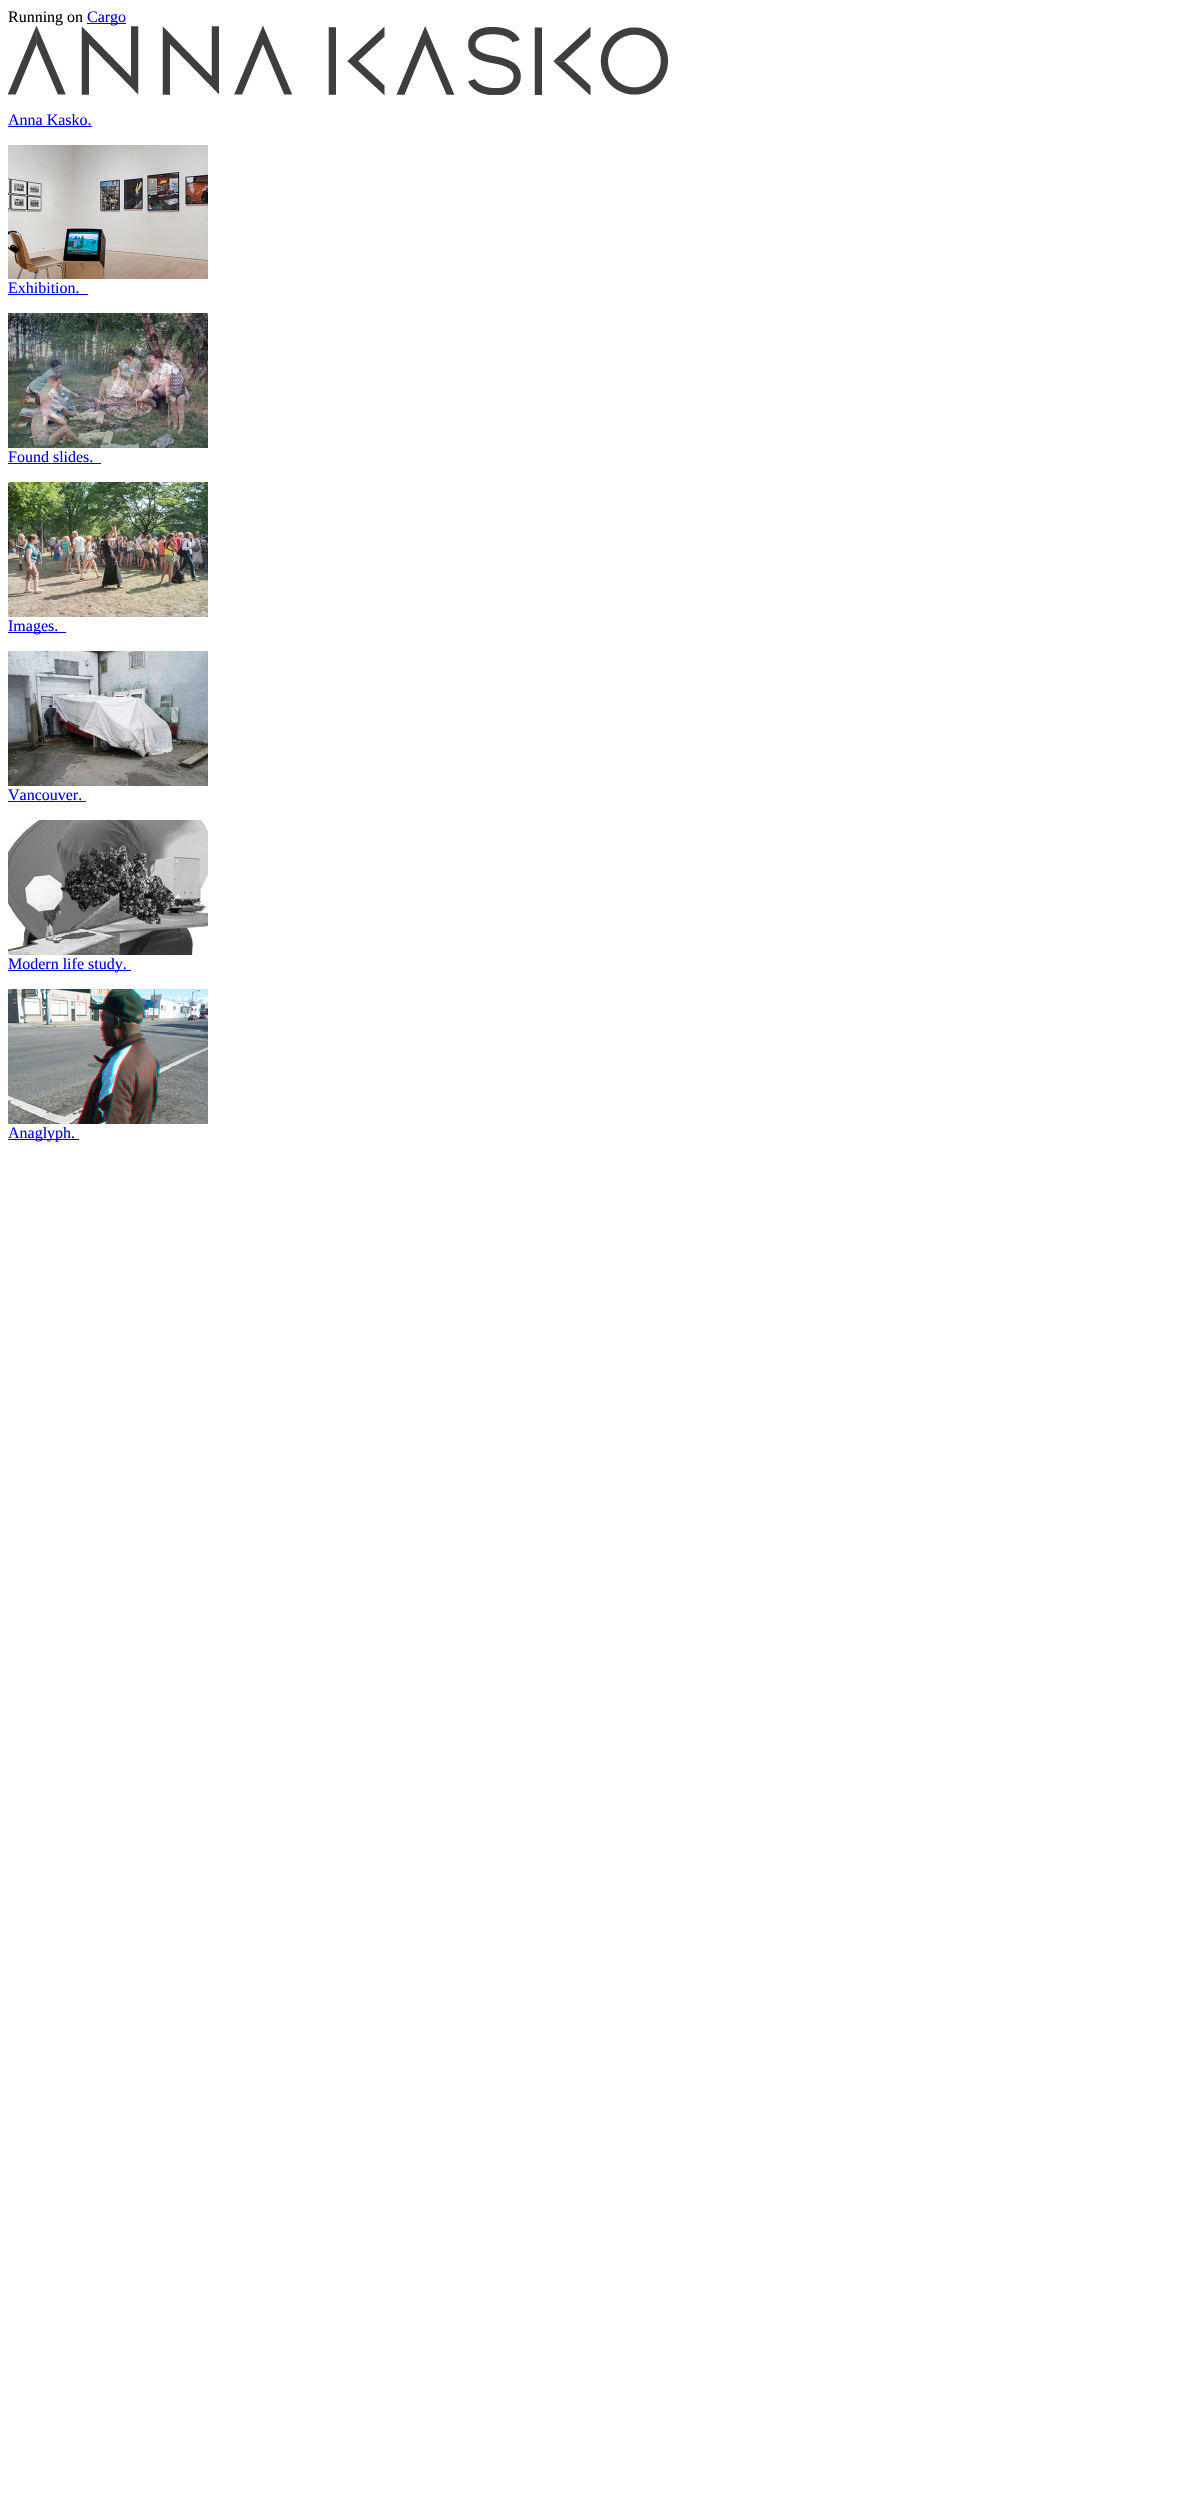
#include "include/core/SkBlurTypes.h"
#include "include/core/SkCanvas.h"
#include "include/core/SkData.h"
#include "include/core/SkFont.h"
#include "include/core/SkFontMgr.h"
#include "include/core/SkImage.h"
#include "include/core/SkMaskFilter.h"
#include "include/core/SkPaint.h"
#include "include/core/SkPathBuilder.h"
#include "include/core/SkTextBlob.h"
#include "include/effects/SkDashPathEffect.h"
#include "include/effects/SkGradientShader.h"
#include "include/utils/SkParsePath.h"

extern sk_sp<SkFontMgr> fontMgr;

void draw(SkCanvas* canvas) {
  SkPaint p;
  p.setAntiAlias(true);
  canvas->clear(SK_ColorWHITE);
  p.setColor(SkColorSetRGB(0, 0, 238));
  canvas->drawRect(SkRect::MakeLTRB(87, 23, 126, 24), p);
  canvas->drawImageRect(SkImages::DeferredFromEncodedData(SkData::MakeFromFileName("images/1.png")), SkRect::MakeLTRB(8, 26, 668, 95), SkSamplingOptions());
  canvas->drawRect(SkRect::MakeLTRB(8, 126, 92, 127), p);
  canvas->drawImageRect(SkImages::DeferredFromEncodedData(SkData::MakeFromFileName("images/2.png")), SkRect::MakeLTRB(8, 145, 208, 279), SkSamplingOptions());
  canvas->drawRect(SkRect::MakeLTRB(8, 294, 88, 295), p);
  canvas->drawImageRect(SkImages::DeferredFromEncodedData(SkData::MakeFromFileName("images/3.png")), SkRect::MakeLTRB(8, 313, 208, 448), SkSamplingOptions());
  canvas->drawRect(SkRect::MakeLTRB(8, 463, 101, 464), p);
  canvas->drawImageRect(SkImages::DeferredFromEncodedData(SkData::MakeFromFileName("images/4.png")), SkRect::MakeLTRB(8, 482, 208, 617), SkSamplingOptions());
  canvas->drawRect(SkRect::MakeLTRB(8, 632, 66, 633), p);
  canvas->drawImageRect(SkImages::DeferredFromEncodedData(SkData::MakeFromFileName("images/5.png")), SkRect::MakeLTRB(8, 651, 208, 786), SkSamplingOptions());
  canvas->drawRect(SkRect::MakeLTRB(8, 801, 86, 802), p);
  canvas->drawImageRect(SkImages::DeferredFromEncodedData(SkData::MakeFromFileName("images/6.png")), SkRect::MakeLTRB(8, 820, 208, 955), SkSamplingOptions());
  canvas->drawRect(SkRect::MakeLTRB(8, 970, 131, 971), p);
  canvas->drawImageRect(SkImages::DeferredFromEncodedData(SkData::MakeFromFileName("images/7.png")), SkRect::MakeLTRB(8, 989, 208, 1124), SkSamplingOptions());
  canvas->drawRect(SkRect::MakeLTRB(8, 1139, 79, 1140), p);
  SkFont font1(fontMgr->matchFamilyStyle("Liberation Serif", SkFontStyle::Normal()), 16);
  font1.setSubpixel(true);
  p.setColor(SK_ColorBLACK);
  canvas->drawString("Running on", 8, 22, font1, p);
  p.setColor(SkColorSetRGB(0, 0, 238));
  canvas->drawString("Cargo", 87, 22, font1, p);
  canvas->drawString("Anna Kasko.", 8, 125, font1, p);
  canvas->drawString("Exhibition.", 8, 293, font1, p);
  canvas->drawString("Found slides.", 8, 462, font1, p);
  canvas->drawString("Images.", 8, 631, font1, p);
  canvas->drawString("Vancouver.", 8, 800, font1, p);
  canvas->drawString("Modern life study.", 8, 969, font1, p);
  canvas->drawString("Anaglyph.", 8, 1138, font1, p);
}
